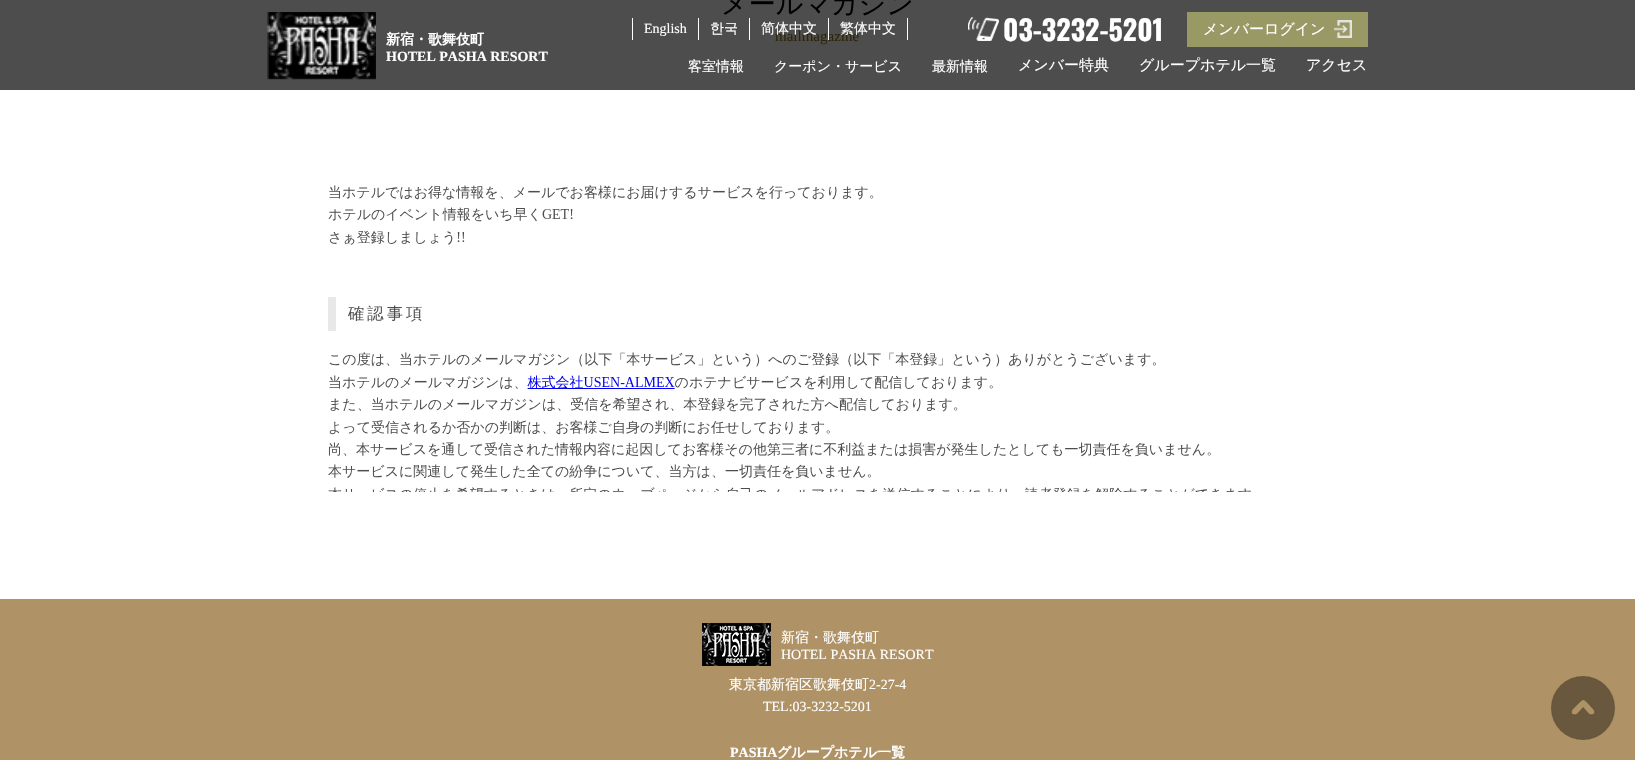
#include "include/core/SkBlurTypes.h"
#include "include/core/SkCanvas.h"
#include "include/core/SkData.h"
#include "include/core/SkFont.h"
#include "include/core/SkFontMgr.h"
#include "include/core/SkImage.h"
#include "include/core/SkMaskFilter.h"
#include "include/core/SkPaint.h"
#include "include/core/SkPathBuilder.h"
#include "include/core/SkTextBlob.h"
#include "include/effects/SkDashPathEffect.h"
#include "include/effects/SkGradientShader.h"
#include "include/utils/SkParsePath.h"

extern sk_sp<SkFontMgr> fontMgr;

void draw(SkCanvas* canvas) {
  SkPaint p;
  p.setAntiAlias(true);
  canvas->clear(SK_ColorWHITE);
  p.setColor(SkColorSetRGB(77, 77, 77));
  canvas->drawRect(SkRect::MakeLTRB(0, 0, 1635, 90), p);
  canvas->drawImageRect(SkImages::DeferredFromEncodedData(SkData::MakeFromFileName("images/1.png")), SkRect::MakeLTRB(328, 185, 1251, 492), SkSamplingOptions());
  p.setColor(SkColorSetRGB(175, 146, 101));
  canvas->drawRect(SkRect::MakeLTRB(0, 599, 1635, 760), p);
  canvas->drawImageRect(SkImages::DeferredFromEncodedData(SkData::MakeFromFileName("images/2.png")), SkRect::MakeLTRB(702, 623, 771, 666), SkSamplingOptions());
  canvas->drawImageRect(SkImages::DeferredFromEncodedData(SkData::MakeFromFileName("images/3.png")), SkRect::MakeLTRB(1551, 676, 1615, 740), SkSamplingOptions());
  p.setColor(SK_ColorWHITE);
  canvas->drawRect(SkRect::MakeLTRB(632, 18, 633, 40), p);
  canvas->drawRect(SkRect::MakeLTRB(698, 18, 699, 40), p);
  canvas->drawRect(SkRect::MakeLTRB(749, 18, 750, 40), p);
  canvas->drawRect(SkRect::MakeLTRB(907, 18, 908, 40), p);
  canvas->drawImageRect(SkImages::DeferredFromEncodedData(SkData::MakeFromFileName("images/4.png")), SkRect::MakeLTRB(968, 17, 999, 41), SkSamplingOptions());
  p.setColor(SkColorSetRGB(153, 153, 102));
  canvas->drawRect(SkRect::MakeLTRB(1187, 12, 1368, 47), p);
  canvas->drawImageRect(SkImages::DeferredFromEncodedData(SkData::MakeFromFileName("images/5.png")), SkRect::MakeLTRB(1334, 20, 1352, 38), SkSamplingOptions());
  canvas->drawImageRect(SkImages::DeferredFromEncodedData(SkData::MakeFromFileName("images/6.png")), SkRect::MakeLTRB(267, 12, 376, 80), SkSamplingOptions());
  SkFont font1(fontMgr->matchFamilyStyle("WenQuanYi Zen Hei", SkFontStyle(500, SkFontStyle::kNormal_Width, SkFontStyle::kUpright_Slant)), 27);
  font1.setSubpixel(true);
  p.setColor(SK_ColorBLACK);
  canvas->drawString("メールマガジン", 721, 13, font1, p);
  SkFont font2(fontMgr->matchFamilyStyle("Liberation Serif", SkFontStyle::Normal()), 15);
  font2.setSubpixel(true);
  p.setColor(SkColorSetRGB(45, 36, 7));
  canvas->drawString("mailmagazine", 775, 41, font2, p);
  SkFont font3(fontMgr->matchFamilyStyle("WenQuanYi Zen Hei", SkFontStyle(500, SkFontStyle::kNormal_Width, SkFontStyle::kUpright_Slant)), 14);
  font3.setSubpixel(true);
  p.setColor(SK_ColorWHITE);
  canvas->drawString("新宿・歌舞伎町", 781, 642, font3, p);
  SkFont font4(fontMgr->matchFamilyStyle("Liberation Serif", SkFontStyle::Normal()), 14);
  font4.setSubpixel(true);
  canvas->drawString("HOTEL PASHA RESORT", 781, 659, font4, p);
  canvas->drawString("東京都新宿区歌舞伎町", 729, 689, font3, p);
  canvas->drawString("2-27-4", 869, 689, font4, p);
  canvas->drawString("TEL:03-3232-5201", 763, 711, font4, p);
  SkFont font5(fontMgr->matchFamilyStyle("Liberation Serif", SkFontStyle::Bold()), 14);
  font5.setSubpixel(true);
  canvas->drawString("PASHA", 730, 757, font5, p);
  SkFont font6(fontMgr->matchFamilyStyle("WenQuanYi Zen Hei", SkFontStyle::Bold()), 14);
  font6.setSubpixel(true);
  canvas->drawString("グループホテル一覧", 777, 757, font6, p);
  canvas->drawString("English", 644, 33, font4, p);
  canvas->drawString("한국", 710, 33, font3, p);
  canvas->drawString("简体中文", 761, 33, font3, p);
  canvas->drawRect(SkRect::MakeLTRB(828, 18, 829, 40), p);
  canvas->drawString("繁体中文", 840, 33, font3, p);
  SkFont font7(fontMgr->matchFamilyStyle("Oswald", SkFontStyle::Bold()), 28);
  font7.setSubpixel(true);
  canvas->drawString("03-3232-5201", 1003, 41, font7, p);
  SkFont font8(fontMgr->matchFamilyStyle("WenQuanYi Zen Hei", SkFontStyle(500, SkFontStyle::kNormal_Width, SkFontStyle::kUpright_Slant)), 15);
  font8.setSubpixel(true);
  canvas->drawString("メンバーログイン", 1203, 34, font8, p);
  canvas->drawString("新宿・歌舞伎町", 386, 44, font6, p);
  canvas->drawString("HOTEL PASHA RESORT", 386, 61, font5, p);
  canvas->drawString("客室情報", 688, 71, font3, p);
  canvas->drawString("クーポン・サービス", 774, 71, font3, p);
  canvas->drawString("最新情報", 932, 71, font3, p);
  canvas->drawString("メンバー特典", 1018, 70, font8, p);
  canvas->drawString("グループホテル一覧", 1139, 70, font8, p);
  canvas->drawString("アクセス", 1306, 70, font8, p);
}
